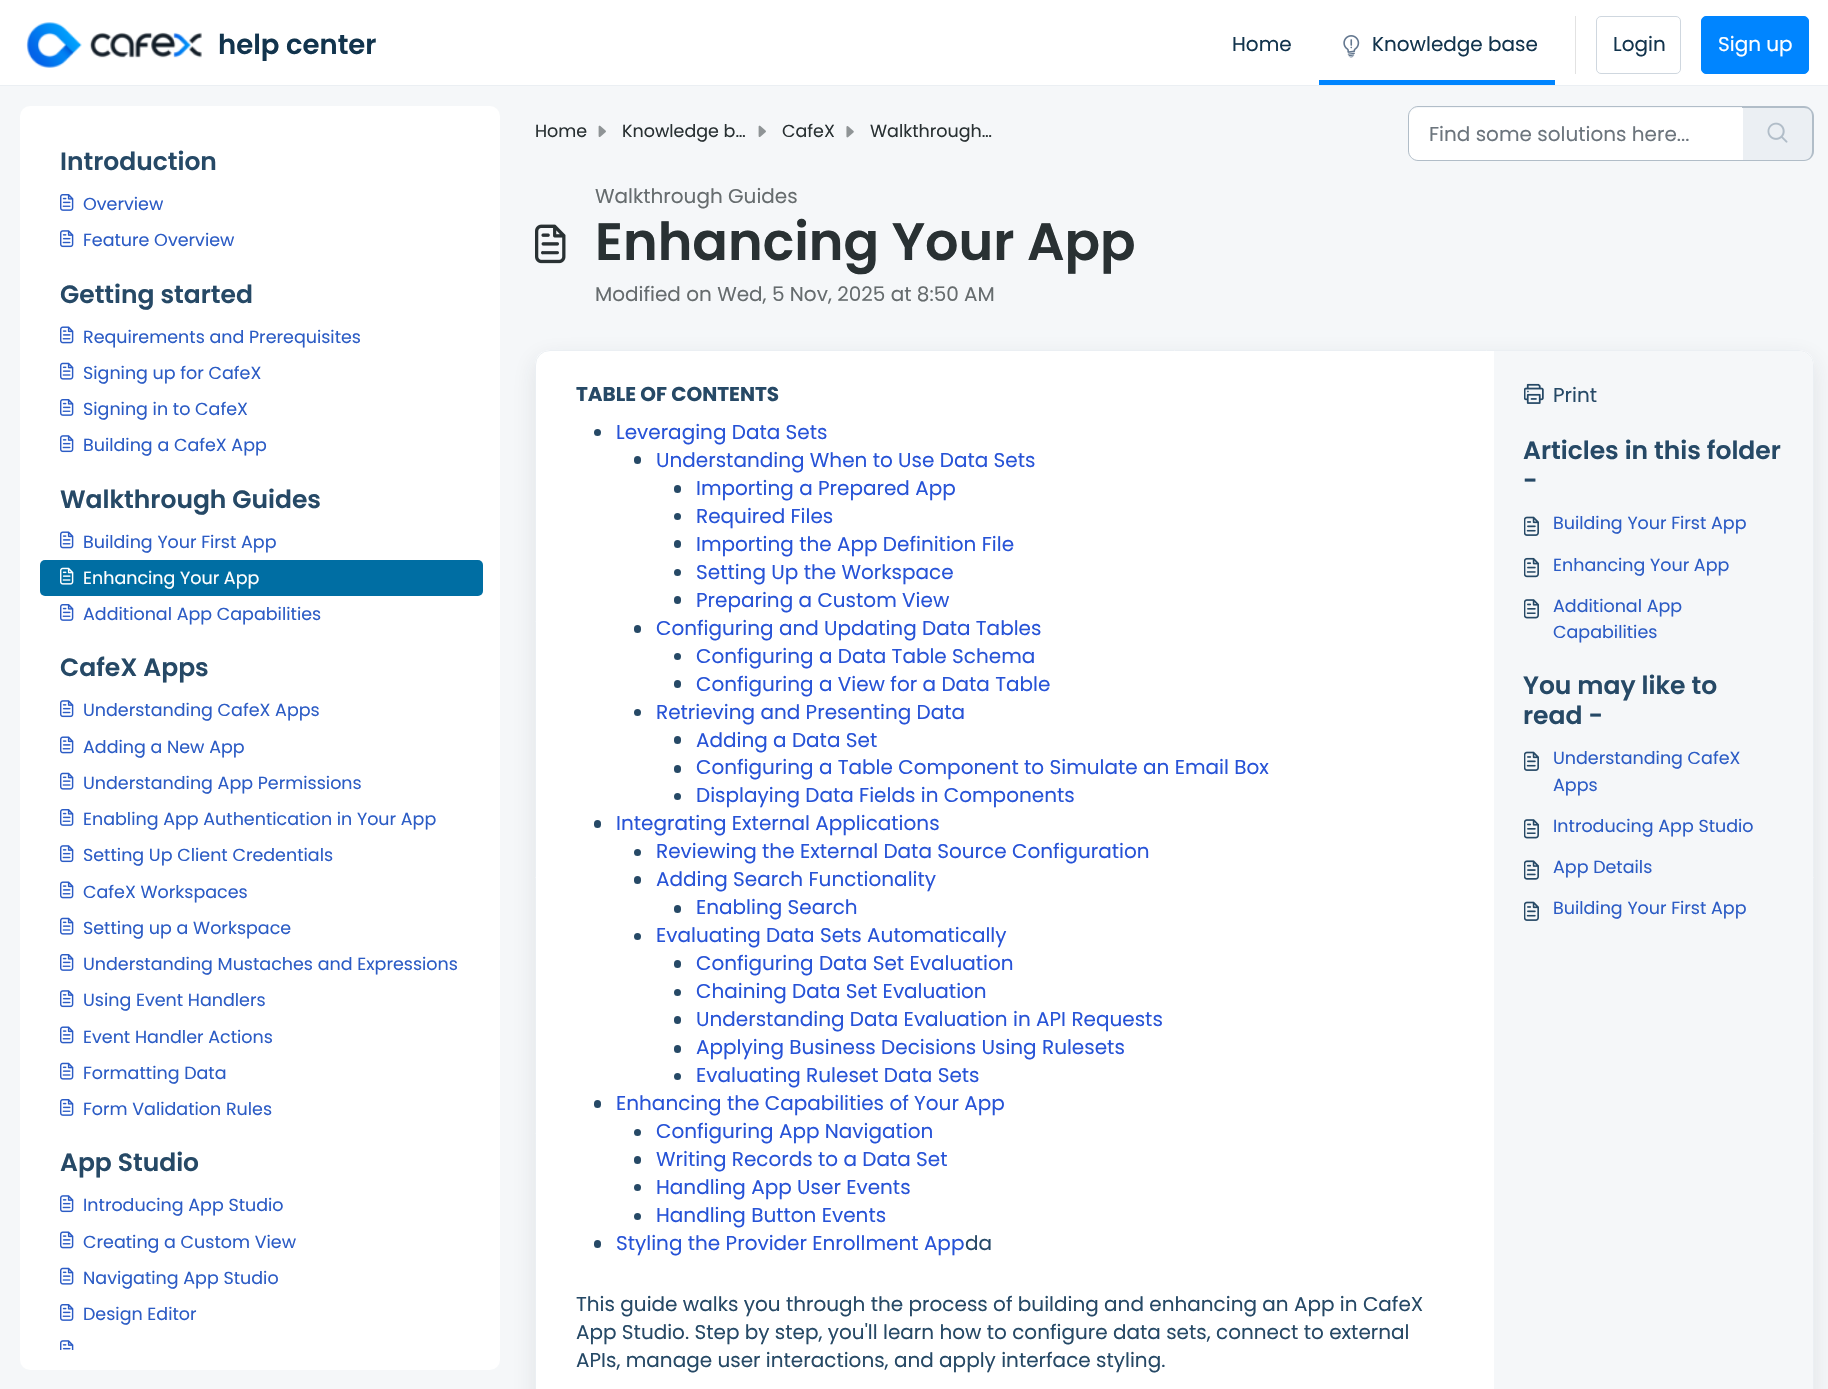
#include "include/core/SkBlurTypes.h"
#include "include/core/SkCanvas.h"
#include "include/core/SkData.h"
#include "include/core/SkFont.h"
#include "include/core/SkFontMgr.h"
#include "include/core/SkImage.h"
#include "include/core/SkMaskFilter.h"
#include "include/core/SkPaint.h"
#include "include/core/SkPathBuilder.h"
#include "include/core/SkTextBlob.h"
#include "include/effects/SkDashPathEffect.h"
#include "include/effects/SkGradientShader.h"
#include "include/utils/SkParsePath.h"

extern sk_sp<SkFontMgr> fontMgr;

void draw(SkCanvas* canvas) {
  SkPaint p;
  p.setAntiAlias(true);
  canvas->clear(SkColorSetRGB(245, 247, 249));
  p.setColor(SK_ColorWHITE);
  canvas->drawRect(SkRect::MakeLTRB(0, 0, 1828, 85), p);
  p.setColor(SkColorSetRGB(235, 239, 243));
  canvas->drawRect(SkRect::MakeLTRB(0, 85, 1828, 86), p);
  canvas->drawImageRect(SkImages::DeferredFromEncodedData(SkData::MakeFromFileName("images/1.png")), SkRect::MakeLTRB(26, 22, 202, 68), SkSamplingOptions());
  p.setColor(SkColorSetRGB(0, 133, 255));
  canvas->drawRect(SkRect::MakeLTRB(1319, 80, 1555, 85), p);
  canvas->drawImageRect(SkImages::DeferredFromEncodedData(SkData::MakeFromFileName("images/2.png")), SkRect::MakeLTRB(1343, 35, 1360, 58), SkSamplingOptions());
  p.setColor(SkColorSetRGB(226, 226, 226));
  canvas->drawRect(SkRect::MakeLTRB(1575, 16, 1576, 74), p);
  p.setStyle(SkPaint::kStroke_Style);
  p.setStrokeWidth(1);
  p.setColor(SkColorSetRGB(207, 215, 223));
  canvas->drawRoundRect(SkRect::MakeLTRB(1596.5f, 16.5f, 1680.5f, 73.5f), 4.5f, 4.5f, p);
  p.setStyle(SkPaint::kFill_Style);
  p.setColor(SkColorSetRGB(0, 133, 255));
  canvas->drawRoundRect(SkRect::MakeLTRB(1701.5f, 16.5f, 1808.5f, 73.5f), 4.5f, 4.5f, p);
  p.setStyle(SkPaint::kStroke_Style);
  canvas->drawRoundRect(SkRect::MakeLTRB(1701.5f, 16.5f, 1808.5f, 73.5f), 4.5f, 4.5f, p);
  p.setStyle(SkPaint::kFill_Style);
  p.setColor(SkColorSetARGB(26, 39, 49, 58));
  p.setMaskFilter(SkMaskFilter::MakeBlur(kNormal_SkBlurStyle, 12));
  canvas->drawRoundRect(SkRect::MakeLTRB(535, 358, 1814, 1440), 15, 15, p);
  p.setMaskFilter(nullptr);
  p.setColor(SK_ColorWHITE);
  canvas->drawRoundRect(SkRect::MakeLTRB(20, 106, 500, 1370), 10, 10, p);
  canvas->drawImageRect(SkImages::DeferredFromEncodedData(SkData::MakeFromFileName("images/3.png")), SkRect::MakeLTRB(60, 194, 74, 211), SkSamplingOptions());
  canvas->drawImageRect(SkImages::DeferredFromEncodedData(SkData::MakeFromFileName("images/4.png")), SkRect::MakeLTRB(60, 230, 74, 248), SkSamplingOptions());
  canvas->drawImageRect(SkImages::DeferredFromEncodedData(SkData::MakeFromFileName("images/5.png")), SkRect::MakeLTRB(60, 326, 74, 344), SkSamplingOptions());
  canvas->drawImageRect(SkImages::DeferredFromEncodedData(SkData::MakeFromFileName("images/6.png")), SkRect::MakeLTRB(60, 362, 74, 380), SkSamplingOptions());
  canvas->drawImageRect(SkImages::DeferredFromEncodedData(SkData::MakeFromFileName("images/3.png")), SkRect::MakeLTRB(60, 399, 74, 416), SkSamplingOptions());
  canvas->drawImageRect(SkImages::DeferredFromEncodedData(SkData::MakeFromFileName("images/4.png")), SkRect::MakeLTRB(60, 435, 74, 453), SkSamplingOptions());
  canvas->drawImageRect(SkImages::DeferredFromEncodedData(SkData::MakeFromFileName("images/5.png")), SkRect::MakeLTRB(60, 531, 74, 549), SkSamplingOptions());
  p.setColor(SkColorSetRGB(0, 110, 163));
  canvas->drawRoundRect(SkRect::MakeLTRB(40, 560, 483, 596), 5, 5, p);
  canvas->drawImageRect(SkImages::DeferredFromEncodedData(SkData::MakeFromFileName("images/7.png")), SkRect::MakeLTRB(60, 567, 74, 585), SkSamplingOptions());
  canvas->drawImageRect(SkImages::DeferredFromEncodedData(SkData::MakeFromFileName("images/3.png")), SkRect::MakeLTRB(60, 604, 74, 621), SkSamplingOptions());
  canvas->drawImageRect(SkImages::DeferredFromEncodedData(SkData::MakeFromFileName("images/4.png")), SkRect::MakeLTRB(60, 700, 74, 718), SkSamplingOptions());
  canvas->drawImageRect(SkImages::DeferredFromEncodedData(SkData::MakeFromFileName("images/5.png")), SkRect::MakeLTRB(60, 736, 74, 754), SkSamplingOptions());
  canvas->drawImageRect(SkImages::DeferredFromEncodedData(SkData::MakeFromFileName("images/6.png")), SkRect::MakeLTRB(60, 772, 74, 790), SkSamplingOptions());
  canvas->drawImageRect(SkImages::DeferredFromEncodedData(SkData::MakeFromFileName("images/3.png")), SkRect::MakeLTRB(60, 809, 74, 826), SkSamplingOptions());
  canvas->drawImageRect(SkImages::DeferredFromEncodedData(SkData::MakeFromFileName("images/4.png")), SkRect::MakeLTRB(60, 845, 74, 863), SkSamplingOptions());
  canvas->drawImageRect(SkImages::DeferredFromEncodedData(SkData::MakeFromFileName("images/5.png")), SkRect::MakeLTRB(60, 881, 74, 899), SkSamplingOptions());
  canvas->drawImageRect(SkImages::DeferredFromEncodedData(SkData::MakeFromFileName("images/6.png")), SkRect::MakeLTRB(60, 917, 74, 935), SkSamplingOptions());
  canvas->drawImageRect(SkImages::DeferredFromEncodedData(SkData::MakeFromFileName("images/3.png")), SkRect::MakeLTRB(60, 954, 74, 971), SkSamplingOptions());
  canvas->drawImageRect(SkImages::DeferredFromEncodedData(SkData::MakeFromFileName("images/4.png")), SkRect::MakeLTRB(60, 990, 74, 1008), SkSamplingOptions());
  canvas->drawImageRect(SkImages::DeferredFromEncodedData(SkData::MakeFromFileName("images/5.png")), SkRect::MakeLTRB(60, 1026, 74, 1044), SkSamplingOptions());
  canvas->drawImageRect(SkImages::DeferredFromEncodedData(SkData::MakeFromFileName("images/6.png")), SkRect::MakeLTRB(60, 1062, 74, 1080), SkSamplingOptions());
  canvas->drawImageRect(SkImages::DeferredFromEncodedData(SkData::MakeFromFileName("images/3.png")), SkRect::MakeLTRB(60, 1099, 74, 1116), SkSamplingOptions());
  canvas->drawImageRect(SkImages::DeferredFromEncodedData(SkData::MakeFromFileName("images/4.png")), SkRect::MakeLTRB(60, 1195, 74, 1213), SkSamplingOptions());
  canvas->drawImageRect(SkImages::DeferredFromEncodedData(SkData::MakeFromFileName("images/5.png")), SkRect::MakeLTRB(60, 1231, 74, 1249), SkSamplingOptions());
  canvas->drawImageRect(SkImages::DeferredFromEncodedData(SkData::MakeFromFileName("images/6.png")), SkRect::MakeLTRB(60, 1267, 74, 1285), SkSamplingOptions());
  canvas->drawImageRect(SkImages::DeferredFromEncodedData(SkData::MakeFromFileName("images/3.png")), SkRect::MakeLTRB(60, 1304, 74, 1321), SkSamplingOptions());
  canvas->drawImageRect(SkImages::DeferredFromEncodedData(SkData::MakeFromFileName("images/8.png")), SkRect::MakeLTRB(60, 1340, 74, 1350), SkSamplingOptions());
  canvas->drawImageRect(SkImages::DeferredFromEncodedData(SkData::MakeFromFileName("images/9.png")), SkRect::MakeLTRB(598, 125, 606, 137), SkSamplingOptions());
  canvas->drawImageRect(SkImages::DeferredFromEncodedData(SkData::MakeFromFileName("images/9.png")), SkRect::MakeLTRB(758, 125, 766, 137), SkSamplingOptions());
  canvas->drawImageRect(SkImages::DeferredFromEncodedData(SkData::MakeFromFileName("images/10.png")), SkRect::MakeLTRB(846, 126, 854, 138), SkSamplingOptions());
  p.setColor(SK_ColorWHITE);
  canvas->drawPath(SkPathBuilder().moveTo(1418, 108).lineTo(1743, 108).lineTo(1743, 160).lineTo(1418, 160).cubicTo(1413, 160, 1409, 156, 1409, 151).lineTo(1409, 117).cubicTo(1409, 112, 1413, 108, 1418, 108).close().detach(), p);
  p.setStyle(SkPaint::kStroke_Style);
  p.setColor(SkColorSetRGB(177, 189, 200));
  canvas->drawPath(SkPathBuilder().moveTo(1418, 106.5f).lineTo(1743.5f, 106.5f).lineTo(1743.5f, 160.5f).lineTo(1418, 160.5f).cubicTo(1413, 160.5f, 1408.5f, 156, 1408.5f, 151).lineTo(1408.5f, 116).cubicTo(1408.5f, 111, 1413, 106.5f, 1418, 106.5f).close().detach(), p);
  p.setStyle(SkPaint::kFill_Style);
  p.setColor(SkColorSetRGB(235, 239, 243));
  canvas->drawPath(SkPathBuilder().moveTo(1743, 106).lineTo(1804, 106).cubicTo(1809.5f, 106, 1814, 110.5f, 1814, 116).lineTo(1814, 151).cubicTo(1814, 156.5f, 1809.5f, 161, 1804, 161).lineTo(1743, 161).close().detach(), p);
  p.setColor(SkColorSetRGB(177, 189, 200));
  canvas->drawPath(SkPathBuilder(SkPathFillType::kEvenOdd).moveTo(1742, 106).lineTo(1804, 106).cubicTo(1809, 106, 1814, 111, 1814, 116).lineTo(1814, 151).cubicTo(1814, 157, 1809, 161, 1804, 161).lineTo(1742, 161).close().moveTo(1742, 108).lineTo(1804, 108).cubicTo(1809, 108, 1812, 111, 1812, 116).lineTo(1812, 151).cubicTo(1812, 156, 1809, 160, 1804, 160).lineTo(1742, 160).close().detach(), p);
  canvas->drawImageRect(SkImages::DeferredFromEncodedData(SkData::MakeFromFileName("images/11.png")), SkRect::MakeLTRB(1767, 122, 1788, 143), SkSamplingOptions());
  canvas->drawImageRect(SkImages::DeferredFromEncodedData(SkData::MakeFromFileName("images/12.png")), SkRect::MakeLTRB(535, 224, 566, 264), SkSamplingOptions());
  p.setColor(SK_ColorWHITE);
  canvas->drawPath(SkPathBuilder().moveTo(550, 350).lineTo(1799, 350).cubicTo(1807.5f, 350, 1814, 356.5f, 1814, 365).lineTo(1814, 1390).lineTo(535, 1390).lineTo(535, 365).cubicTo(535, 356.5f, 541.5f, 350, 550, 350).close().detach(), p);
  p.setStyle(SkPaint::kStroke_Style);
  p.setColor(SkColorSetRGB(235, 239, 243));
  canvas->drawRoundRect(SkRect::MakeLTRB(535.5f, 350.5f, 1813.5f, 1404.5f), 14.5f, 14.5f, p);
  p.setStyle(SkPaint::kFill_Style);
  p.setColor(SkColorSetRGB(38, 73, 102));
  canvas->drawCircle(597.5f, 432.5f, 3.5f, p);
  canvas->drawRoundRect(SkRect::MakeLTRB(634, 456, 641, 464), 3.5f, 3.5f, p);
  canvas->drawRoundRect(SkRect::MakeLTRB(674, 485, 681, 493), 3.5f, 3.5f, p);
  canvas->drawCircle(677.5f, 516.5f, 3.5f, p);
  canvas->drawRoundRect(SkRect::MakeLTRB(674, 540, 681, 548), 3.5f, 3.5f, p);
  canvas->drawCircle(677.5f, 572.5f, 3.5f, p);
  canvas->drawRoundRect(SkRect::MakeLTRB(674, 596, 681, 604), 3.5f, 3.5f, p);
  canvas->drawRoundRect(SkRect::MakeLTRB(634, 625, 641, 633), 3.5f, 3.5f, p);
  canvas->drawCircle(677.5f, 656.5f, 3.5f, p);
  canvas->drawRoundRect(SkRect::MakeLTRB(674, 680, 681, 688), 3.5f, 3.5f, p);
  canvas->drawCircle(637.5f, 712.5f, 3.5f, p);
  canvas->drawRoundRect(SkRect::MakeLTRB(674, 736, 681, 744), 3.5f, 3.5f, p);
  canvas->drawRoundRect(SkRect::MakeLTRB(674, 765, 681, 773), 3.5f, 3.5f, p);
  canvas->drawCircle(677.5f, 796.5f, 3.5f, p);
  canvas->drawRoundRect(SkRect::MakeLTRB(594, 820, 601, 828), 3.5f, 3.5f, p);
  canvas->drawCircle(637.5f, 852.5f, 3.5f, p);
  canvas->drawRoundRect(SkRect::MakeLTRB(634, 876, 641, 884), 3.5f, 3.5f, p);
  canvas->drawRoundRect(SkRect::MakeLTRB(674, 905, 681, 913), 3.5f, 3.5f, p);
  canvas->drawCircle(637.5f, 936.5f, 3.5f, p);
  canvas->drawRoundRect(SkRect::MakeLTRB(674, 960, 681, 968), 3.5f, 3.5f, p);
  canvas->drawCircle(677.5f, 992.5f, 3.5f, p);
  canvas->drawRoundRect(SkRect::MakeLTRB(674, 1016, 681, 1024), 3.5f, 3.5f, p);
  canvas->drawRoundRect(SkRect::MakeLTRB(674, 1045, 681, 1053), 3.5f, 3.5f, p);
  canvas->drawCircle(677.5f, 1076.5f, 3.5f, p);
  canvas->drawRoundRect(SkRect::MakeLTRB(594, 1100, 601, 1108), 3.5f, 3.5f, p);
  canvas->drawCircle(637.5f, 1132.5f, 3.5f, p);
  canvas->drawRoundRect(SkRect::MakeLTRB(634, 1156, 641, 1164), 3.5f, 3.5f, p);
  canvas->drawCircle(637.5f, 1187.5f, 3.5f, p);
  canvas->drawCircle(637.5f, 1216.5f, 3.5f, p);
  canvas->drawRoundRect(SkRect::MakeLTRB(594, 1240, 601, 1248), 3.5f, 3.5f, p);
  p.setColor(SkColorSetRGB(245, 247, 249));
  canvas->drawPath(SkPathBuilder().moveTo(1494, 351).lineTo(1798, 351).cubicTo(1806.5f, 351, 1813, 357.5f, 1813, 366).lineTo(1813, 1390).lineTo(1494, 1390).close().detach(), p);
  canvas->drawImageRect(SkImages::DeferredFromEncodedData(SkData::MakeFromFileName("images/13.png")), SkRect::MakeLTRB(1524, 383, 1544, 404), SkSamplingOptions());
  canvas->drawImageRect(SkImages::DeferredFromEncodedData(SkData::MakeFromFileName("images/14.png")), SkRect::MakeLTRB(1524, 516, 1539, 536), SkSamplingOptions());
  canvas->drawImageRect(SkImages::DeferredFromEncodedData(SkData::MakeFromFileName("images/15.png")), SkRect::MakeLTRB(1524, 557, 1539, 578), SkSamplingOptions());
  canvas->drawImageRect(SkImages::DeferredFromEncodedData(SkData::MakeFromFileName("images/16.png")), SkRect::MakeLTRB(1524, 599, 1539, 619), SkSamplingOptions());
  canvas->drawImageRect(SkImages::DeferredFromEncodedData(SkData::MakeFromFileName("images/14.png")), SkRect::MakeLTRB(1524, 751, 1539, 771), SkSamplingOptions());
  canvas->drawImageRect(SkImages::DeferredFromEncodedData(SkData::MakeFromFileName("images/16.png")), SkRect::MakeLTRB(1524, 819, 1539, 839), SkSamplingOptions());
  canvas->drawImageRect(SkImages::DeferredFromEncodedData(SkData::MakeFromFileName("images/17.png")), SkRect::MakeLTRB(1524, 860, 1539, 880), SkSamplingOptions());
  canvas->drawImageRect(SkImages::DeferredFromEncodedData(SkData::MakeFromFileName("images/14.png")), SkRect::MakeLTRB(1524, 901, 1539, 921), SkSamplingOptions());
  canvas->save();
  canvas->clipRect(SkRect::MakeLTRB(219, 29, 376, 61));
  SkFont font1(fontMgr->matchFamilyStyle("Poppins", SkFontStyle(600, SkFontStyle::kNormal_Width, SkFontStyle::kUpright_Slant)), 27.5f);
  font1.setSubpixel(true);
  p.setColor(SkColorSetRGB(18, 52, 77));
  canvas->drawString("help center", 218, 54, font1, p);
  canvas->restore();
  SkFont font2(fontMgr->matchFamilyStyle("Poppins", SkFontStyle::Normal()), 20);
  font2.setSubpixel(true);
  canvas->drawString("Home", 1232, 51, font2, p);
  canvas->drawString("Knowledge base", 1372, 51, font2, p);
  canvas->drawString("Login", 1613, 51, font2, p);
  p.setColor(SK_ColorWHITE);
  canvas->drawString("Sign up", 1718, 51, font2, p);
  SkFont font3(fontMgr->matchFamilyStyle("Poppins", SkFontStyle(600, SkFontStyle::kNormal_Width, SkFontStyle::kUpright_Slant)), 25);
  font3.setSubpixel(true);
  p.setColor(SkColorSetRGB(38, 73, 102));
  canvas->drawString("Introduction", 60, 170, font3, p);
  SkFont font4(fontMgr->matchFamilyStyle("Poppins", SkFontStyle::Normal()), 17.5f);
  font4.setSubpixel(true);
  p.setColor(SkColorSetRGB(44, 92, 197));
  canvas->drawString("Overview", 83, 210, font4, p);
  canvas->drawString("Feature Overview", 83, 246, font4, p);
  p.setColor(SkColorSetRGB(38, 73, 102));
  canvas->drawString("Getting started", 60, 303, font3, p);
  p.setColor(SkColorSetRGB(44, 92, 197));
  canvas->drawString("Requirements and Prerequisites", 83, 343, font4, p);
  canvas->drawString("Signing up for CafeX", 83, 379, font4, p);
  canvas->drawString("Signing in to CafeX", 83, 415, font4, p);
  canvas->drawString("Building a CafeX App", 83, 451, font4, p);
  p.setColor(SkColorSetRGB(38, 73, 102));
  canvas->drawString("Walkthrough Guides", 60, 508, font3, p);
  p.setColor(SkColorSetRGB(44, 92, 197));
  canvas->drawString("Building Your First App", 83, 548, font4, p);
  p.setColor(SK_ColorWHITE);
  canvas->drawString("Enhancing Your App", 83, 584, font4, p);
  p.setColor(SkColorSetRGB(44, 92, 197));
  canvas->drawString("Additional App Capabilities", 83, 620, font4, p);
  p.setColor(SkColorSetRGB(38, 73, 102));
  canvas->drawString("CafeX Apps", 60, 676, font3, p);
  p.setColor(SkColorSetRGB(44, 92, 197));
  canvas->drawString("Understanding CafeX Apps", 83, 716, font4, p);
  canvas->drawString("Adding a New App", 83, 753, font4, p);
  canvas->drawString("Understanding App Permissions", 83, 789, font4, p);
  canvas->drawString("Enabling App Authentication in Your App", 83, 825, font4, p);
  canvas->drawString("Setting Up Client Credentials", 83, 861, font4, p);
  canvas->drawString("CafeX Workspaces", 83, 898, font4, p);
  canvas->drawString("Setting up a Workspace", 83, 934, font4, p);
  canvas->drawString("Understanding Mustaches and Expressions", 83, 970, font4, p);
  canvas->drawString("Using Event Handlers", 83, 1006, font4, p);
  canvas->drawString("Event Handler Actions", 83, 1043, font4, p);
  canvas->drawString("Formatting Data", 83, 1079, font4, p);
  canvas->drawString("Form Validation Rules", 83, 1115, font4, p);
  p.setColor(SkColorSetRGB(38, 73, 102));
  canvas->drawString("App Studio", 60, 1171, font3, p);
  p.setColor(SkColorSetRGB(44, 92, 197));
  canvas->drawString("Introducing App Studio", 83, 1211, font4, p);
  canvas->drawString("Creating a Custom View", 83, 1248, font4, p);
  canvas->drawString("Navigating App Studio", 83, 1284, font4, p);
  canvas->drawString("Design Editor", 83, 1320, font4, p);
  p.setColor(SkColorSetRGB(41, 49, 51));
  canvas->drawString("Home", 535, 137, font4, p);
  canvas->drawString("Knowledge b…", 622, 137, font4, p);
  canvas->drawString("CafeX", 782, 137, font4, p);
  canvas->drawString("Walkthrough…", 870, 137, font4, p);
  p.setColor(SkColorSetRGB(108, 117, 125));
  canvas->drawString("Find some solutions here...", 1429, 141, font2, p);
  p.setColor(SkColorSetRGB(102, 108, 110));
  canvas->drawString("Walkthrough Guides", 595, 203, font2, p);
  SkFont font5(fontMgr->matchFamilyStyle("Poppins", SkFontStyle(600, SkFontStyle::kNormal_Width, SkFontStyle::kUpright_Slant)), 52.5f);
  font5.setSubpixel(true);
  p.setColor(SkColorSetRGB(41, 49, 51));
  canvas->drawString("Enhancing Your App", 595, 260, font5, p);
  p.setColor(SkColorSetRGB(102, 108, 110));
  canvas->drawString("Modified on Wed, 5 Nov, 2025 at 8:50 AM", 595, 301, font2, p);
  SkFont font6(fontMgr->matchFamilyStyle("Poppins", SkFontStyle::Bold()), 20);
  font6.setSubpixel(true);
  p.setColor(SkColorSetRGB(38, 73, 102));
  canvas->drawString("TABLE OF CONTENTS", 576, 401, font6, p);
  p.setColor(SkColorSetRGB(39, 83, 215));
  canvas->drawString("Leveraging Data Sets", 616, 439, font2, p);
  canvas->drawString("Understanding When to Use Data Sets", 656, 467, font2, p);
  canvas->drawString("Importing a Prepared App", 696, 495, font2, p);
  canvas->drawString("Required Files", 696, 523, font2, p);
  canvas->drawString("Importing the App Definition File", 696, 551, font2, p);
  canvas->drawString("Setting Up the Workspace", 696, 579, font2, p);
  canvas->drawString("Preparing a Custom View", 696, 607, font2, p);
  canvas->drawString("Configuring and Updating Data Tables", 656, 635, font2, p);
  canvas->drawString("Configuring a Data Table Schema", 696, 663, font2, p);
  canvas->drawString("Configuring a View for a Data Table", 696, 691, font2, p);
  canvas->drawString("Retrieving and Presenting Data", 656, 719, font2, p);
  canvas->drawString("Adding a Data Set", 696, 747, font2, p);
  canvas->drawString("Configuring a Table Component to Simulate an Email Box", 696, 774, font2, p);
  canvas->drawString("Displaying Data Fields in Components", 696, 802, font2, p);
  canvas->drawString("Integrating External Applications", 616, 830, font2, p);
  canvas->drawString("Reviewing the External Data Source Configuration", 656, 858, font2, p);
  canvas->drawString("Adding Search Functionality", 656, 886, font2, p);
  canvas->drawString("Enabling Search", 696, 914, font2, p);
  canvas->drawString("Evaluating Data Sets Automatically", 656, 942, font2, p);
  canvas->drawString("Configuring Data Set Evaluation", 696, 970, font2, p);
  canvas->drawString("Chaining Data Set Evaluation", 696, 998, font2, p);
  canvas->drawString("Understanding Data Evaluation in API Requests", 696, 1026, font2, p);
  canvas->drawString("Applying Business Decisions Using Rulesets", 696, 1054, font2, p);
  canvas->drawString("Evaluating Ruleset Data Sets", 696, 1082, font2, p);
  canvas->drawString("Enhancing the Capabilities of Your App", 616, 1110, font2, p);
  canvas->drawString("Configuring App Navigation", 656, 1138, font2, p);
  canvas->drawString("Writing Records to a Data Set", 656, 1166, font2, p);
  canvas->drawString("Handling App User Events", 656, 1194, font2, p);
  canvas->drawString("Handling Button Events", 656, 1222, font2, p);
  canvas->drawString("Styling the Provider Enrollment App", 616, 1250, font2, p);
  p.setColor(SkColorSetRGB(38, 73, 102));
  canvas->drawString("da", 965, 1250, font2, p);
  canvas->drawString("This guide walks you through the process of building and enhancing an App in CafeX", 576, 1311, font2, p);
  canvas->drawString("App Studio. Step by step, you'll learn how to configure data sets, connect to external", 576, 1339, font2, p);
  canvas->drawString("APIs, manage user interactions, and apply interface styling.", 576, 1367, font2, p);
  canvas->drawString("Print", 1553, 402, font2, p);
  canvas->drawString("Articles in this folder", 1523, 459, font3, p);
  canvas->drawString("-", 1523, 489, font3, p);
  p.setColor(SkColorSetRGB(44, 92, 197));
  canvas->drawString("Building Your First App", 1553, 529, font4, p);
  canvas->drawString("Enhancing Your App", 1553, 571, font4, p);
  canvas->drawString("Additional App", 1553, 612, font4, p);
  canvas->drawString("Capabilities", 1553, 638, font4, p);
  p.setColor(SkColorSetRGB(38, 73, 102));
  canvas->drawString("You may like to", 1523, 694, font3, p);
  canvas->drawString("read -", 1523, 724, font3, p);
  p.setColor(SkColorSetRGB(44, 92, 197));
  canvas->drawString("Understanding CafeX", 1553, 764, font4, p);
  canvas->drawString("Apps", 1553, 791, font4, p);
  canvas->drawString("Introducing App Studio", 1553, 832, font4, p);
  canvas->drawString("App Details", 1553, 873, font4, p);
  canvas->drawString("Building Your First App", 1553, 914, font4, p);
}
